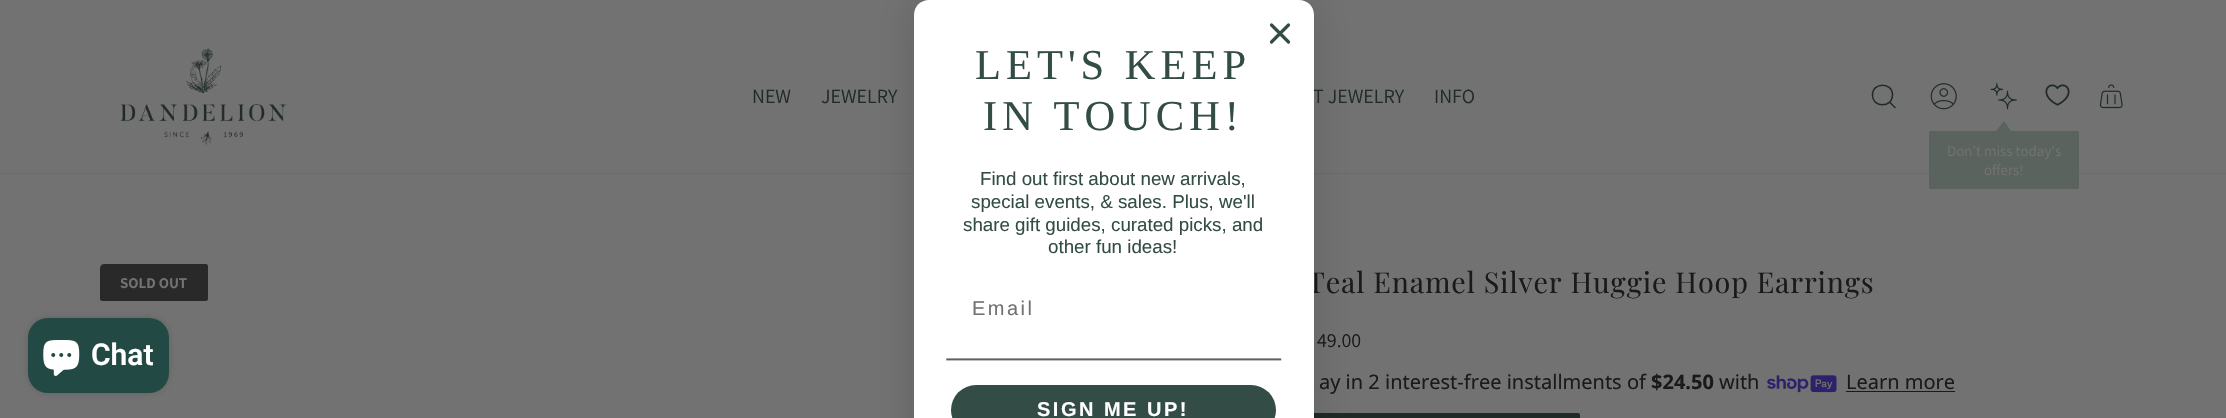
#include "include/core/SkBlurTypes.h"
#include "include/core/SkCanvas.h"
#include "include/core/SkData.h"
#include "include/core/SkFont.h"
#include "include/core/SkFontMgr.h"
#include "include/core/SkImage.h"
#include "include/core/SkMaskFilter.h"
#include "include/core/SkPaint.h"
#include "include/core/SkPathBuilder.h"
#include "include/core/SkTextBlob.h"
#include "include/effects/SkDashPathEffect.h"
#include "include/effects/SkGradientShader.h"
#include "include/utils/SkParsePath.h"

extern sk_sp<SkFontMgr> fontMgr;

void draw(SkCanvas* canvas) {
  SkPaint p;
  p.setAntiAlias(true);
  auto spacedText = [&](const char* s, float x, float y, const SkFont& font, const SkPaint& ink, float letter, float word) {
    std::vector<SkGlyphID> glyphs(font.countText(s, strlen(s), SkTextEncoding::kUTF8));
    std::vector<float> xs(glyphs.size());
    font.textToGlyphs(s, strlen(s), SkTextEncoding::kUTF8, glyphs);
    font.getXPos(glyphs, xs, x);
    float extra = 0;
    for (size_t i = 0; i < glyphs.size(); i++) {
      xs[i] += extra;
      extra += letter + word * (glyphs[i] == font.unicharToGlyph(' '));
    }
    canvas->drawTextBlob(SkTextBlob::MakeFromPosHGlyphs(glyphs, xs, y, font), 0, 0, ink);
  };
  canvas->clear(SkColorSetRGB(114, 114, 114));
  p.setColor(SkColorSetRGB(107, 107, 107));
  canvas->drawRect(SkRect::MakeLTRB(0, 173, 2226, 174), p);
  p.setColor(SkColorSetRGB(32, 43, 40));
  canvas->drawRoundRect(SkRect::MakeLTRB(1308, 413, 1580, 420), 2, 2, p);
  p.setColor(SkColorSetARGB(38, 0, 0, 0));
  p.setMaskFilter(SkMaskFilter::MakeBlur(kNormal_SkBlurStyle, 19));
  canvas->drawRoundRect(SkRect::MakeLTRB(914, 0, 1314, 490), 15, 15, p);
  p.setMaskFilter(nullptr);
  canvas->drawImageRect(SkImages::DeferredFromEncodedData(SkData::MakeFromFileName("images/2.png")), SkRect::MakeLTRB(120, 48, 287, 145), SkSamplingOptions());
  p.setStyle(SkPaint::kStroke_Style);
  p.setStrokeWidth(1.5f);
  p.setStrokeCap(SkPaint::kRound_Cap);
  p.setStrokeJoin(SkPaint::kRound_Join);
  p.setColor(SkColorSetRGB(32, 43, 40));
  canvas->drawPath(SkPathBuilder().moveTo(1890, 102.5f).lineTo(1895, 107.5f).moveTo(1872.5f, 95).cubicTo(1872.5f, 108, 1892.5f, 108, 1892.5f, 95).cubicTo(1892.5f, 82, 1872.5f, 82, 1872.5f, 95).close().detach(), p);
  canvas->drawImageRect(SkImages::DeferredFromEncodedData(SkData::MakeFromFileName("images/3.png")), SkRect::MakeLTRB(1930, 83, 1957, 110), SkSamplingOptions());
  canvas->drawImageRect(SkImages::DeferredFromEncodedData(SkData::MakeFromFileName("images/4.png")), SkRect::MakeLTRB(2045, 84, 2070, 106), SkSamplingOptions());
  canvas->drawImageRect(SkImages::DeferredFromEncodedData(SkData::MakeFromFileName("images/5.png")), SkRect::MakeLTRB(2099, 84, 2123, 109), SkSamplingOptions());
  canvas->drawImageRect(SkImages::DeferredFromEncodedData(SkData::MakeFromFileName("images/6.png")), SkRect::MakeLTRB(1990, 83, 2017, 110), SkSamplingOptions());
  p.setStyle(SkPaint::kFill_Style);
  p.setColor(SkColorSetRGB(90, 99, 93));
  canvas->drawRoundRect(SkRect::MakeLTRB(1929, 131, 2079, 189), 2, 2, p);
  canvas->drawPath(SkPathBuilder().moveTo(2011, 131).lineTo(1996, 131).lineTo(2004, 121).close().detach(), p);
  p.setColor(SkColorSetRGB(41, 41, 41));
  canvas->drawPath(SkPathBuilder().moveTo(104, 264).lineTo(206, 264).cubicTo(207, 264, 208, 265, 208, 266).lineTo(208, 299).cubicTo(208, 300, 207, 301, 206, 301).lineTo(102, 301).cubicTo(101, 301, 100, 300, 100, 299).lineTo(100, 268).cubicTo(100, 266, 102, 264, 104, 264).close().detach(), p);
  canvas->drawImageRect(SkImages::DeferredFromEncodedData(SkData::MakeFromFileName("images/7.png")), SkRect::MakeLTRB(1767, 375, 1837, 393), SkSamplingOptions());
  p.setColor(SkColorSetRGB(26, 26, 26));
  canvas->drawRect(SkRect::MakeLTRB(1846, 391, 1955, 392), p);
  p.setColor(SkColorSetARGB(38, 0, 0, 0));
  p.setMaskFilter(SkMaskFilter::MakeBlur(kNormal_SkBlurStyle, 3));
  canvas->drawRoundRect(SkRect::MakeLTRB(28, 318, 169, 393), 20, 20, p);
  p.setMaskFilter(nullptr);
  p.setColor(SkColorSetRGB(34, 73, 68));
  canvas->drawRoundRect(SkRect::MakeLTRB(28, 318, 169, 393), 20, 20, p);
  canvas->drawImageRect(SkImages::DeferredFromEncodedData(SkData::MakeFromFileName("images/8.png")), SkRect::MakeLTRB(43, 340, 80, 376), SkSamplingOptions());
  SkFont font1(fontMgr->matchFamilyStyle("Assistant", SkFontStyle::Normal()), 20);
  font1.setSubpixel(true);
  p.setColor(SkColorSetRGB(32, 43, 40));
  canvas->drawString("NEW", 752, 103, font1, p);
  canvas->drawString("JEWELRY", 821, 103, font1, p);
  canvas->drawString("T JEWELRY", 1313, 103, font1, p);
  canvas->drawString("INFO", 1434, 103, font1, p);
  SkFont font2(fontMgr->matchFamilyStyle("Assistant", SkFontStyle::Normal()), 15);
  font2.setSubpixel(true);
  p.setColor(SkColorSetRGB(114, 114, 114));
  canvas->drawString("Don't miss today's", 1947, 156, font2, p);
  canvas->drawString("offers!", 1984, 175, font2, p);
  SkFont font3(fontMgr->matchFamilyStyle("Assistant", SkFontStyle::Bold()), 15);
  font3.setSubpixel(true);
  canvas->drawString("SOLD OUT", 120, 288, font3, p);
  SkFont font4(fontMgr->matchFamilyStyle("Playfair Display", SkFontStyle::Normal()), 28.75f);
  font4.setSubpixel(true);
  p.setColor(SkColorSetRGB(26, 26, 26));
  spacedText("Teal Enamel Silver Huggie Hoop Earrings", 1307, 293, font4, p, 0.85f, 0);
  p.setColor(SK_ColorWHITE);
  canvas->drawPath(SkPathBuilder().moveTo(929, 0).lineTo(1299, 0).cubicTo(1307.5f, 0, 1314, 6.5f, 1314, 15).lineTo(1314, 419).lineTo(914, 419).lineTo(914, 15).cubicTo(914, 6.5f, 920.5f, 0, 929, 0).close().detach(), p);
  p.setStyle(SkPaint::kStroke_Style);
  p.setStrokeWidth(3.2f);
  p.setColor(SkColorSetRGB(51, 77, 70));
  canvas->drawPath(SkPathBuilder().moveTo(1271.5f, 25).lineTo(1288.5f, 42).moveTo(1271.5f, 42).lineTo(1288.5f, 25).close().detach(), p);
  p.setStyle(SkPaint::kFill_Style);
  canvas->drawRoundRect(SkRect::MakeLTRB(951, 385, 1276, 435), 25, 25, p);
  SkFont font5(fontMgr->matchFamilyStyle("Liberation Sans", SkFontStyle::Bold()), 20);
  font5.setSubpixel(true);
  p.setColor(SK_ColorWHITE);
  spacedText("SIGN ME UP!", 1037, 416, font5, p, 2.5f, 0);
  canvas->drawImageRect(SkImages::DeferredFromEncodedData(SkData::MakeFromFileName("images/1.png")), SkRect::MakeLTRB(946, 358, 1282, 361), SkSamplingOptions());
  SkFont font6(fontMgr->matchFamilyStyle("Liberation Sans", SkFontStyle::Normal()), 20);
  font6.setSubpixel(true);
  p.setColor(SkColorSetRGB(114, 114, 114));
  spacedText("Email", 972, 315, font6, p, 2.5f, 0);
  SkFont font7(fontMgr->matchFamilyStyle("Liberation Sans", SkFontStyle::Normal()), 18.75f);
  font7.setSubpixel(true);
  p.setColor(SkColorSetRGB(51, 77, 70));
  canvas->drawString("other fun ideas!", 1048, 253, font7, p);
  canvas->drawString("share gift guides, curated picks, and", 963, 231, font7, p);
  canvas->drawString("special events, & sales. Plus, we'll", 971, 208, font7, p);
  canvas->drawString("Find out first about new arrivals,", 980, 185, font7, p);
  SkFont font8(fontMgr->matchFamilyStyle("Liberation Serif", SkFontStyle::Normal()), 42.5f);
  font8.setSubpixel(true);
  spacedText("IN TOUCH!", 983, 130, font8, p, 5, 0);
  spacedText("LET'S KEEP", 975, 79, font8, p, 5, 0);
  p.setColor(SkColorSetRGB(26, 26, 26));
  canvas->drawString("49.00", 1317, 347, font1, p);
  SkFont font9(fontMgr->matchFamilyStyle("Noto Sans", SkFontStyle::Normal()), 20);
  font9.setSubpixel(true);
  canvas->drawString("ay in 2 interest-free installments of", 1319, 389, font9, p);
  SkFont font10(fontMgr->matchFamilyStyle("Noto Sans", SkFontStyle::Bold()), 20);
  font10.setSubpixel(true);
  canvas->drawString("$24.50", 1651, 389, font10, p);
  canvas->drawString("with", 1719, 389, font9, p);
  canvas->drawString("Learn more", 1846, 389, font9, p);
  SkFont font11(fontMgr->matchFamilyStyle("Roboto", SkFontStyle(600, SkFontStyle::kNormal_Width, SkFontStyle::kUpright_Slant)), 30);
  font11.setSubpixel(true);
  p.setColor(SK_ColorWHITE);
  canvas->drawString("Chat", 91, 365, font11, p);
}
